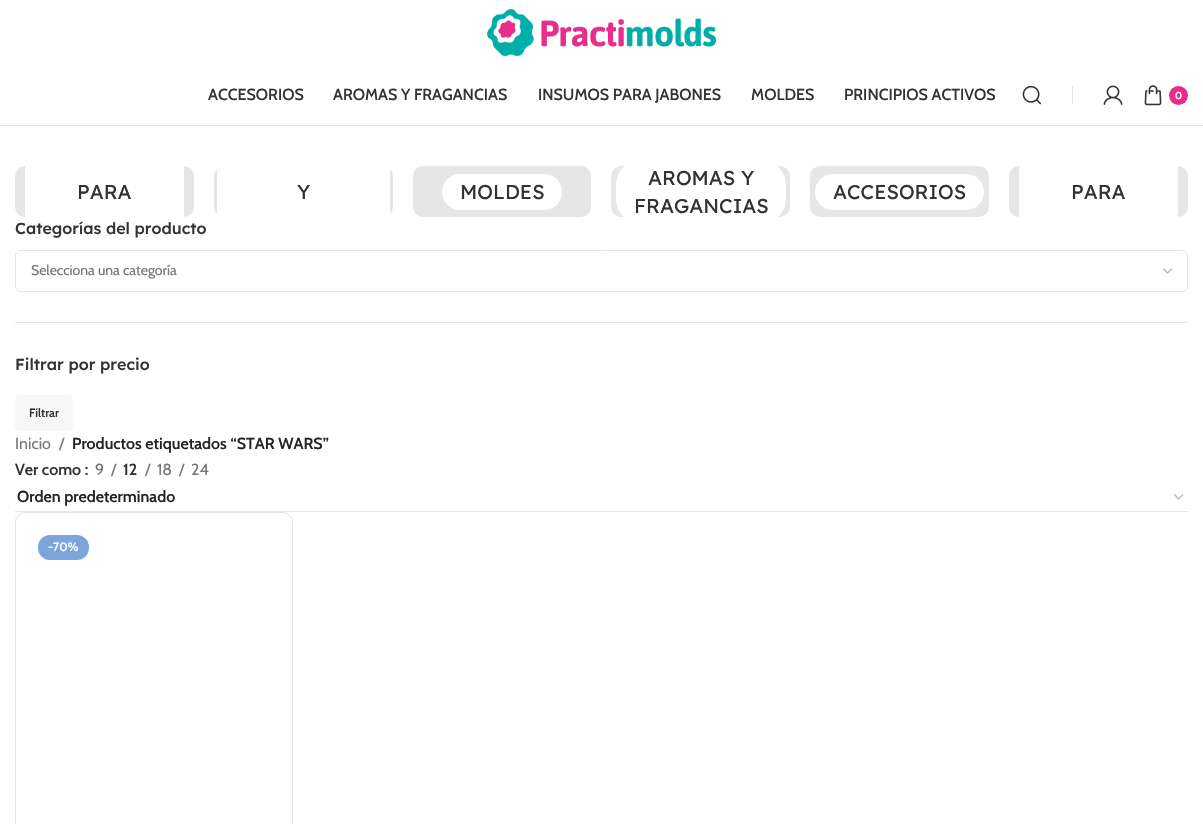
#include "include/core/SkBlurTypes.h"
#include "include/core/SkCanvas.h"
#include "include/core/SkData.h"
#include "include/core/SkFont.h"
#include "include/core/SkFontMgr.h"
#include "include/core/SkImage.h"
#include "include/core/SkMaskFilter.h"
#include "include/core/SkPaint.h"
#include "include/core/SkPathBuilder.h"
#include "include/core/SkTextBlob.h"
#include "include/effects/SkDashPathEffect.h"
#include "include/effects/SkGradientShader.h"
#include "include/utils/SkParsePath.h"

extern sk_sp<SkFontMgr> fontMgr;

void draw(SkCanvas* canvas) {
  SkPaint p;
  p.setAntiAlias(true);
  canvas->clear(SK_ColorWHITE);
  canvas->drawImageRect(SkImages::DeferredFromEncodedData(SkData::MakeFromFileName("images/1.png")), SkRect::MakeLTRB(487, 9, 716, 56), SkSamplingOptions());
  p.setColor(SkColorSetRGB(228, 228, 228));
  canvas->drawRect(SkRect::MakeLTRB(0, 125, 1203, 126), p);
  canvas->drawImageRect(SkImages::DeferredFromEncodedData(SkData::MakeFromFileName("images/2.png")), SkRect::MakeLTRB(1022, 85, 1041, 105), SkSamplingOptions());
  canvas->drawRect(SkRect::MakeLTRB(1072, 86, 1073, 104), p);
  canvas->drawImageRect(SkImages::DeferredFromEncodedData(SkData::MakeFromFileName("images/3.png")), SkRect::MakeLTRB(1103, 85, 1123, 105), SkSamplingOptions());
  canvas->drawImageRect(SkImages::DeferredFromEncodedData(SkData::MakeFromFileName("images/4.png")), SkRect::MakeLTRB(1144, 85, 1162, 106), SkSamplingOptions());
  p.setColor(SkColorSetRGB(232, 46, 138));
  canvas->drawCircle(1178.5f, 95.5f, 9.5f, p);
  p.setColor(SkColorSetRGB(230, 230, 230));
  canvas->drawRoundRect(SkRect::MakeLTRB(15, 166, 194, 217), 10, 10, p);
  canvas->drawRoundRect(SkRect::MakeLTRB(214, 166, 393, 217), 10, 10, p);
  canvas->save();
  canvas->clipPath(SkPathBuilder().moveTo(224, 166).lineTo(383, 166).cubicTo(388.5f, 166, 393, 170.5f, 393, 176).lineTo(393, 207).cubicTo(393, 212.5f, 388.5f, 217, 383, 217).lineTo(224, 217).cubicTo(218.5f, 217, 214, 212.5f, 214, 207).lineTo(214, 176).cubicTo(214, 170.5f, 218.5f, 166, 224, 166).close().detach(), true);
  p.setColor(SK_ColorWHITE);
  canvas->drawRoundRect(SkRect::MakeLTRB(217, 146, 390, 238), 25, 25, p);
  canvas->restore();
  p.setColor(SkColorSetRGB(230, 230, 230));
  canvas->drawRoundRect(SkRect::MakeLTRB(413, 166, 591, 217), 10, 10, p);
  p.setColor(SK_ColorWHITE);
  canvas->drawRoundRect(SkRect::MakeLTRB(442, 174, 562, 210), 18, 18, p);
  p.setColor(SkColorSetRGB(230, 230, 230));
  canvas->drawRoundRect(SkRect::MakeLTRB(611, 166, 790, 217), 10, 10, p);
  canvas->save();
  canvas->clipPath(SkPathBuilder().moveTo(621, 166).lineTo(780, 166).cubicTo(785.5f, 166, 790, 170.5f, 790, 176).lineTo(790, 207).cubicTo(790, 212.5f, 785.5f, 217, 780, 217).lineTo(621, 217).cubicTo(615.5f, 217, 611, 212.5f, 611, 207).lineTo(611, 176).cubicTo(611, 170.5f, 615.5f, 166, 621, 166).close().detach(), true);
  p.setColor(SK_ColorWHITE);
  canvas->drawRoundRect(SkRect::MakeLTRB(616, 160, 786, 224), 25, 25, p);
  canvas->restore();
  p.setColor(SkColorSetRGB(230, 230, 230));
  canvas->drawRoundRect(SkRect::MakeLTRB(810, 166, 989, 217), 10, 10, p);
  p.setColor(SK_ColorWHITE);
  canvas->drawRoundRect(SkRect::MakeLTRB(815, 174, 984, 210), 18, 18, p);
  p.setColor(SkColorSetRGB(230, 230, 230));
  canvas->drawRoundRect(SkRect::MakeLTRB(1009, 166, 1188, 217), 10, 10, p);
  canvas->save();
  canvas->clipPath(SkPathBuilder().moveTo(1019, 166).lineTo(1178, 166).cubicTo(1183.5f, 166, 1188, 170.5f, 1188, 176).lineTo(1188, 207).cubicTo(1188, 212.5f, 1183.5f, 217, 1178, 217).lineTo(1019, 217).cubicTo(1013.5f, 217, 1009, 212.5f, 1009, 207).lineTo(1009, 176).cubicTo(1009, 170.5f, 1013.5f, 166, 1019, 166).close().detach(), true);
  p.setColor(SK_ColorWHITE);
  canvas->drawRoundRect(SkRect::MakeLTRB(1019, 146, 1178, 238), 25, 25, p);
  canvas->restore();
  p.setColor(SkColorSetRGB(228, 228, 228));
  canvas->drawRect(SkRect::MakeLTRB(15, 322, 1188, 323), p);
  p.setStyle(SkPaint::kStroke_Style);
  p.setStrokeWidth(1.4f);
  p.setColor(SkColorSetRGB(187, 187, 187));
  canvas->drawPath(SkPathBuilder().moveTo(1163.5f, 268.5f).lineTo(1167.5f, 273).lineTo(1172, 268.5f).detach(), p);
  p.setStrokeWidth(1);
  p.setColor(SkColorSetRGB(230, 230, 230));
  canvas->drawRoundRect(SkRect::MakeLTRB(15.5f, 250.5f, 1187.5f, 291.5f), 4.5f, 4.5f, p);
  p.setStyle(SkPaint::kFill_Style);
  p.setColor(SkColorSetRGB(247, 247, 247));
  canvas->drawRoundRect(SkRect::MakeLTRB(15, 395, 73, 431), 5, 5, p);
  p.setStyle(SkPaint::kStroke_Style);
  p.setStrokeWidth(1.4f);
  p.setColor(SkColorSetRGB(187, 187, 187));
  canvas->drawPath(SkPathBuilder().moveTo(1174.5f, 494.5f).lineTo(1178.5f, 499).lineTo(1183, 494.5f).detach(), p);
  p.setStyle(SkPaint::kFill_Style);
  p.setColor(SkColorSetRGB(230, 230, 230));
  canvas->drawRect(SkRect::MakeLTRB(15, 511, 1188, 512), p);
  p.setStyle(SkPaint::kStroke_Style);
  p.setStrokeWidth(1);
  p.setColor(SkColorSetRGB(228, 228, 228));
  canvas->drawRoundRect(SkRect::MakeLTRB(15.5f, 512.5f, 292.5f, 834.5f), 9.5f, 9.5f, p);
  p.setStyle(SkPaint::kFill_Style);
  p.setColor(SkColorSetRGB(126, 164, 222));
  canvas->drawRoundRect(SkRect::MakeLTRB(38, 535, 89, 560), 12, 12, p);
  SkFont font1(fontMgr->matchFamilyStyle("Cabin", SkFontStyle(500, SkFontStyle::kNormal_Width, SkFontStyle::kUpright_Slant)), 16);
  font1.setSubpixel(true);
  p.setColor(SkColorSetRGB(51, 51, 51));
  canvas->drawString("ACCESORIOS", 208, 100, font1, p);
  canvas->drawString("AROMAS Y FRAGANCIAS", 333, 100, font1, p);
  canvas->drawString("INSUMOS PARA JABONES", 538, 100, font1, p);
  canvas->drawString("MOLDES", 751, 100, font1, p);
  canvas->drawString("PRINCIPIOS ACTIVOS", 844, 100, font1, p);
  SkFont font2(fontMgr->matchFamilyStyle("Cabin", SkFontStyle(600, SkFontStyle::kNormal_Width, SkFontStyle::kUpright_Slant)), 10);
  font2.setSubpixel(true);
  p.setColor(SK_ColorWHITE);
  canvas->drawString("0", 1175, 99, font2, p);
  SkFont font3(fontMgr->matchFamilyStyle("Lexend", SkFontStyle::Normal()), 20);
  font3.setSubpixel(true);
  p.setColor(SkColorSetRGB(51, 51, 51));
  canvas->drawString("Y", 297, 199, font3, p);
  canvas->drawString("MOLDES", 460, 199, font3, p);
  canvas->drawString("AROMAS Y", 648, 185, font3, p);
  canvas->drawString("FRAGANCIAS", 634, 213, font3, p);
  canvas->drawString("ACCESORIOS", 833, 199, font3, p);
  canvas->drawString("PARA", 1071, 199, font3, p);
  SkFont font4(fontMgr->matchFamilyStyle("Lexend", SkFontStyle(500, SkFontStyle::kNormal_Width, SkFontStyle::kUpright_Slant)), 16);
  font4.setSubpixel(true);
  canvas->drawString("Categorías del producto", 15, 234, font4, p);
  canvas->save();
  canvas->clipPath(SkPathBuilder().moveTo(25, 166).lineTo(184, 166).cubicTo(189.5f, 166, 194, 170.5f, 194, 176).lineTo(194, 207).cubicTo(194, 212.5f, 189.5f, 217, 184, 217).lineTo(25, 217).cubicTo(19.5f, 217, 15, 212.5f, 15, 207).lineTo(15, 176).cubicTo(15, 170.5f, 19.5f, 166, 25, 166).close().detach(), true);
  p.setColor(SK_ColorWHITE);
  canvas->drawRoundRect(SkRect::MakeLTRB(25, 146, 184, 238), 25, 25, p);
  canvas->restore();
  p.setColor(SkColorSetRGB(51, 51, 51));
  canvas->drawString("PARA", 77, 199, font3, p);
  SkFont font5(fontMgr->matchFamilyStyle("Cabin", SkFontStyle::Normal()), 14);
  font5.setSubpixel(true);
  p.setColor(SkColorSetRGB(118, 118, 118));
  canvas->drawString("Selecciona una categoría", 31, 275, font5, p);
  p.setColor(SkColorSetRGB(51, 51, 51));
  canvas->drawString("Filtrar por precio", 15, 370, font4, p);
  SkFont font6(fontMgr->matchFamilyStyle("Cabin", SkFontStyle(600, SkFontStyle::kNormal_Width, SkFontStyle::kUpright_Slant)), 12);
  font6.setSubpixel(true);
  canvas->drawString("Filtrar", 29, 417, font6, p);
  SkFont font7(fontMgr->matchFamilyStyle("Cabin", SkFontStyle::Normal()), 16);
  font7.setSubpixel(true);
  p.setColor(SkColorSetRGB(118, 118, 118));
  canvas->drawString("Inicio", 15, 449, font7, p);
  canvas->drawString("/", 59, 449, font7, p);
  SkFont font8(fontMgr->matchFamilyStyle("Cabin", SkFontStyle(600, SkFontStyle::kNormal_Width, SkFontStyle::kUpright_Slant)), 16);
  font8.setSubpixel(true);
  p.setColor(SkColorSetRGB(36, 36, 36));
  canvas->drawString("Productos etiquetados “STAR WARS”", 72, 449, font8, p);
  p.setColor(SkColorSetRGB(51, 51, 51));
  canvas->drawString("Ver como :", 15, 475, font8, p);
  p.setColor(SkColorSetRGB(118, 118, 118));
  canvas->drawString("9", 95, 475, font7, p);
  canvas->drawString("/", 111, 475, font7, p);
  p.setColor(SkColorSetRGB(51, 51, 51));
  canvas->drawString("12", 123, 475, font8, p);
  p.setColor(SkColorSetRGB(118, 118, 118));
  canvas->drawString("/", 145, 475, font7, p);
  canvas->drawString("18", 157, 475, font7, p);
  canvas->drawString("/", 179, 475, font7, p);
  canvas->drawString("24", 191, 475, font7, p);
  p.setColor(SkColorSetRGB(36, 36, 36));
  canvas->drawString("Orden predeterminado", 17, 502, font8, p);
  p.setColor(SK_ColorWHITE);
  canvas->drawString("-70%", 48, 551, font6, p);
}
